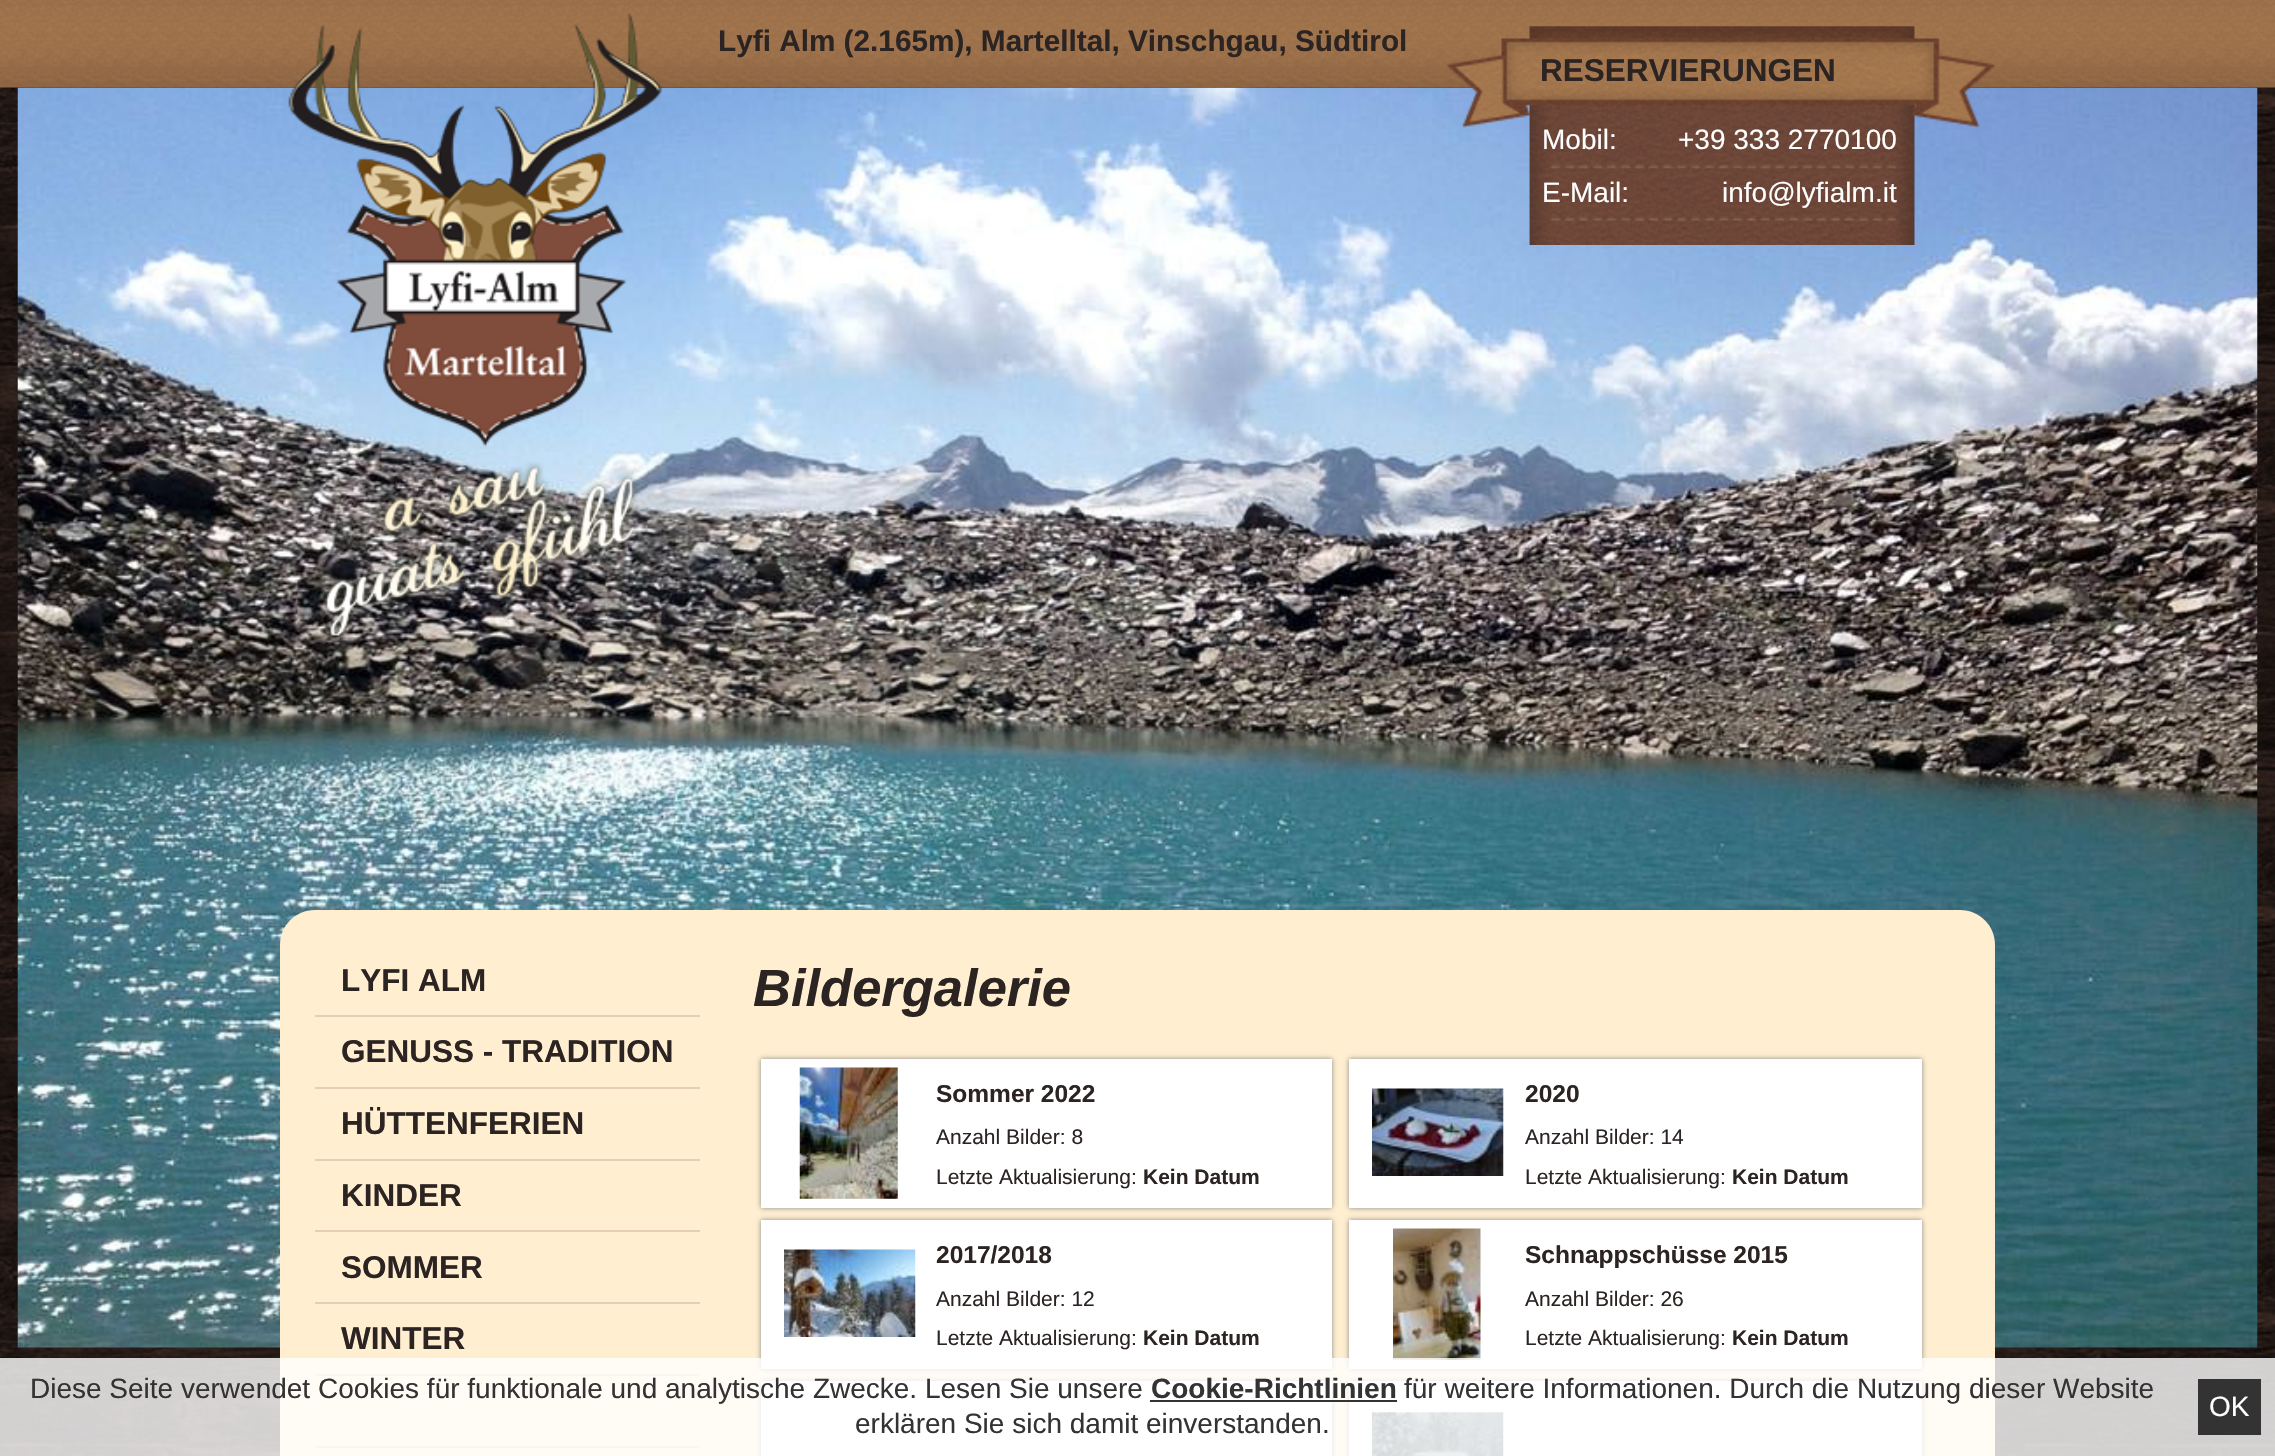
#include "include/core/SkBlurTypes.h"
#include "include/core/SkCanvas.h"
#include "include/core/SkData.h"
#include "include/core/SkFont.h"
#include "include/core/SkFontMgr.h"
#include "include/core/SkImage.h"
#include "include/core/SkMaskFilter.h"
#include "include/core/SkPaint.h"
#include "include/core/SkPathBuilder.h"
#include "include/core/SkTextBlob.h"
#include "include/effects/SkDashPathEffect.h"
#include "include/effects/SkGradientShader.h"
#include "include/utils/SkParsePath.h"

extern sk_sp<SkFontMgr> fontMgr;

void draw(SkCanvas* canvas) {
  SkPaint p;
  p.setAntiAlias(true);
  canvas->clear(SK_ColorWHITE);
  canvas->drawImageRect(SkImages::DeferredFromEncodedData(SkData::MakeFromFileName("images/1.png")), SkRect::MakeLTRB(0, 87, 2275, 1456), SkSamplingOptions());
  canvas->drawImageRect(SkImages::DeferredFromEncodedData(SkData::MakeFromFileName("images/2.png")), SkRect::MakeLTRB(0, 0, 2275, 88), SkSamplingOptions());
  canvas->drawImageRect(SkImages::DeferredFromEncodedData(SkData::MakeFromFileName("images/5.png")), SkRect::MakeLTRB(17, 87, 2258, 1348), SkSamplingOptions());
  canvas->drawImageRect(SkImages::DeferredFromEncodedData(SkData::MakeFromFileName("images/3.png")), SkRect::MakeLTRB(288, 13, 662, 640), SkSamplingOptions());
  canvas->drawImageRect(SkImages::DeferredFromEncodedData(SkData::MakeFromFileName("images/4.png")), SkRect::MakeLTRB(1446, 26, 1995, 245), SkSamplingOptions());
  p.setColor(SkColorSetRGB(255, 238, 208));
  canvas->drawPath(SkPathBuilder().moveTo(315, 910).lineTo(1960, 910).cubicTo(1979.5f, 910, 1995, 925.5f, 1995, 945).lineTo(1995, 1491).lineTo(280, 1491).lineTo(280, 945).cubicTo(280, 925.5f, 295.5f, 910, 315, 910).close().detach(), p);
  p.setColor(SkColorSetRGB(229, 206, 179));
  canvas->drawRect(SkRect::MakeLTRB(315, 1015, 700, 1017), p);
  canvas->drawRect(SkRect::MakeLTRB(315, 1087, 700, 1089), p);
  canvas->drawRect(SkRect::MakeLTRB(315, 1159, 700, 1161), p);
  canvas->drawRect(SkRect::MakeLTRB(315, 1230, 700, 1232), p);
  canvas->drawRect(SkRect::MakeLTRB(315, 1302, 700, 1304), p);
  canvas->drawRect(SkRect::MakeLTRB(315, 1374, 700, 1376), p);
  canvas->drawRect(SkRect::MakeLTRB(315, 1446, 700, 1448), p);
  p.setColor(SkColorSetRGB(136, 136, 136));
  p.setMaskFilter(SkMaskFilter::MakeBlur(kNormal_SkBlurStyle, 2.5f));
  canvas->drawRect(SkRect::MakeLTRB(761, 1059, 1332, 1208), p);
  p.setMaskFilter(nullptr);
  p.setColor(SK_ColorWHITE);
  canvas->drawRect(SkRect::MakeLTRB(761, 1059, 1332, 1208), p);
  canvas->drawImageRect(SkImages::DeferredFromEncodedData(SkData::MakeFromFileName("images/6.png")), SkRect::MakeLTRB(799, 1067, 898, 1199), SkSamplingOptions());
  p.setColor(SkColorSetRGB(136, 136, 136));
  p.setMaskFilter(SkMaskFilter::MakeBlur(kNormal_SkBlurStyle, 2.5f));
  canvas->drawRect(SkRect::MakeLTRB(1349, 1059, 1922, 1208), p);
  p.setMaskFilter(nullptr);
  p.setColor(SK_ColorWHITE);
  canvas->drawRect(SkRect::MakeLTRB(1349, 1059, 1922, 1208), p);
  canvas->drawImageRect(SkImages::DeferredFromEncodedData(SkData::MakeFromFileName("images/7.png")), SkRect::MakeLTRB(1372, 1088, 1504, 1176), SkSamplingOptions());
  p.setColor(SkColorSetRGB(136, 136, 136));
  p.setMaskFilter(SkMaskFilter::MakeBlur(kNormal_SkBlurStyle, 2.5f));
  canvas->drawRect(SkRect::MakeLTRB(761, 1220, 1332, 1369), p);
  p.setMaskFilter(nullptr);
  p.setColor(SK_ColorWHITE);
  canvas->drawRect(SkRect::MakeLTRB(761, 1220, 1332, 1369), p);
  canvas->drawImageRect(SkImages::DeferredFromEncodedData(SkData::MakeFromFileName("images/8.png")), SkRect::MakeLTRB(784, 1249, 916, 1337), SkSamplingOptions());
  p.setColor(SkColorSetRGB(136, 136, 136));
  p.setMaskFilter(SkMaskFilter::MakeBlur(kNormal_SkBlurStyle, 2.5f));
  canvas->drawRect(SkRect::MakeLTRB(1349, 1220, 1922, 1369), p);
  p.setMaskFilter(nullptr);
  p.setColor(SK_ColorWHITE);
  canvas->drawRect(SkRect::MakeLTRB(1349, 1220, 1922, 1369), p);
  canvas->drawImageRect(SkImages::DeferredFromEncodedData(SkData::MakeFromFileName("images/9.png")), SkRect::MakeLTRB(1393, 1228, 1481, 1360), SkSamplingOptions());
  p.setColor(SkColorSetRGB(136, 136, 136));
  p.setMaskFilter(SkMaskFilter::MakeBlur(kNormal_SkBlurStyle, 2.5f));
  canvas->drawRect(SkRect::MakeLTRB(761, 1381, 1332, 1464), p);
  p.setMaskFilter(nullptr);
  p.setColor(SK_ColorWHITE);
  canvas->drawRect(SkRect::MakeLTRB(761, 1381, 1332, 1456), p);
  p.setColor(SkColorSetRGB(136, 136, 136));
  p.setMaskFilter(SkMaskFilter::MakeBlur(kNormal_SkBlurStyle, 2.5f));
  canvas->drawRect(SkRect::MakeLTRB(1349, 1381, 1922, 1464), p);
  p.setMaskFilter(nullptr);
  p.setColor(SK_ColorWHITE);
  canvas->drawRect(SkRect::MakeLTRB(1349, 1381, 1922, 1456), p);
  canvas->drawImageRect(SkImages::DeferredFromEncodedData(SkData::MakeFromFileName("images/10.png")), SkRect::MakeLTRB(1372, 1412, 1504, 1456), SkSamplingOptions());
  p.setColor(SkColorSetARGB(204, 255, 255, 255));
  canvas->drawRect(SkRect::MakeLTRB(0, 1358, 2275, 1456), p);
  p.setColor(SkColorSetRGB(51, 51, 51));
  canvas->drawRect(SkRect::MakeLTRB(1150, 1400, 1397, 1402), p);
  canvas->drawRect(SkRect::MakeLTRB(2198, 1379, 2261, 1435), p);
  SkFont font1(fontMgr->matchFamilyStyle("Liberation Sans", SkFontStyle::Bold()), 29.75f);
  font1.setSubpixel(true);
  p.setColor(SkColorSetRGB(43, 36, 34));
  canvas->drawString("Lyfi Alm (2.165m), Martelltal, Vinschgau, Südtirol", 718, 51, font1, p);
  SkFont font2(fontMgr->matchFamilyStyle("Liberation Sans", SkFontStyle::Bold()), 31.5f);
  font2.setSubpixel(true);
  canvas->drawString("RESERVIERUNGEN", 1540, 81, font2, p);
  SkFont font3(fontMgr->matchFamilyStyle("Liberation Sans", SkFontStyle::Normal()), 28);
  font3.setSubpixel(true);
  p.setColor(SK_ColorWHITE);
  canvas->drawString("Mobil:", 1542, 149, font3, p);
  canvas->drawString("+39 333 2770100", 1678, 149, font3, p);
  canvas->drawString("E-Mail:", 1542, 202, font3, p);
  canvas->drawString("info@lyfialm.it", 1722, 202, font3, p);
  p.setColor(SkColorSetRGB(43, 36, 34));
  canvas->drawString("LYFI ALM", 341, 991, font2, p);
  canvas->drawString("GENUSS - TRADITION", 341, 1062, font2, p);
  canvas->drawString("HÜTTENFERIEN", 341, 1134, font2, p);
  canvas->drawString("KINDER", 341, 1206, font2, p);
  canvas->drawString("SOMMER", 341, 1278, font2, p);
  canvas->drawString("WINTER", 341, 1349, font2, p);
  SkFont font4(fontMgr->matchFamilyStyle("Liberation Sans", SkFontStyle::BoldItalic()), 52.5f);
  font4.setSubpixel(true);
  canvas->drawString("Bildergalerie", 753, 1006, font4, p);
  SkFont font5(fontMgr->matchFamilyStyle("Liberation Sans", SkFontStyle::Bold()), 24.5f);
  font5.setSubpixel(true);
  canvas->drawString("Sommer 2022", 936, 1102, font5, p);
  SkFont font6(fontMgr->matchFamilyStyle("Liberation Sans", SkFontStyle::Normal()), 21);
  font6.setSubpixel(true);
  canvas->drawString("Anzahl Bilder: 8", 936, 1144, font6, p);
  canvas->drawString("Letzte Aktualisierung:", 936, 1184, font6, p);
  SkFont font7(fontMgr->matchFamilyStyle("Liberation Sans", SkFontStyle::Bold()), 21);
  font7.setSubpixel(true);
  canvas->drawString("Kein Datum", 1143, 1184, font7, p);
  canvas->drawString("2020", 1525, 1102, font5, p);
  canvas->drawString("Anzahl Bilder: 14", 1525, 1144, font6, p);
  canvas->drawString("Letzte Aktualisierung:", 1525, 1184, font6, p);
  canvas->drawString("Kein Datum", 1732, 1184, font7, p);
  canvas->drawString("2017/2018", 936, 1263, font5, p);
  canvas->drawString("Anzahl Bilder: 12", 936, 1306, font6, p);
  canvas->drawString("Letzte Aktualisierung:", 936, 1345, font6, p);
  canvas->drawString("Kein Datum", 1143, 1345, font7, p);
  canvas->drawString("Schnappschüsse 2015", 1525, 1263, font5, p);
  canvas->drawString("Anzahl Bilder: 26", 1525, 1306, font6, p);
  canvas->drawString("Letzte Aktualisierung:", 1525, 1345, font6, p);
  canvas->drawString("Kein Datum", 1732, 1345, font7, p);
  p.setColor(SkColorSetRGB(51, 51, 51));
  canvas->drawString("Diese Seite verwendet Cookies für funktionale und analytische Zwecke. Lesen Sie unsere", 30, 1398, font3, p);
  SkFont font8(fontMgr->matchFamilyStyle("Liberation Sans", SkFontStyle::Bold()), 28);
  font8.setSubpixel(true);
  canvas->drawString("Cookie-Richtlinien", 1151, 1398, font8, p);
  canvas->drawString("für weitere Informationen. Durch die Nutzung dieser Website", 1404, 1398, font3, p);
  canvas->drawString("erklären Sie sich damit einverstanden.", 855, 1433, font3, p);
  p.setColor(SK_ColorWHITE);
  canvas->drawString("OK", 2209, 1416, font3, p);
}
